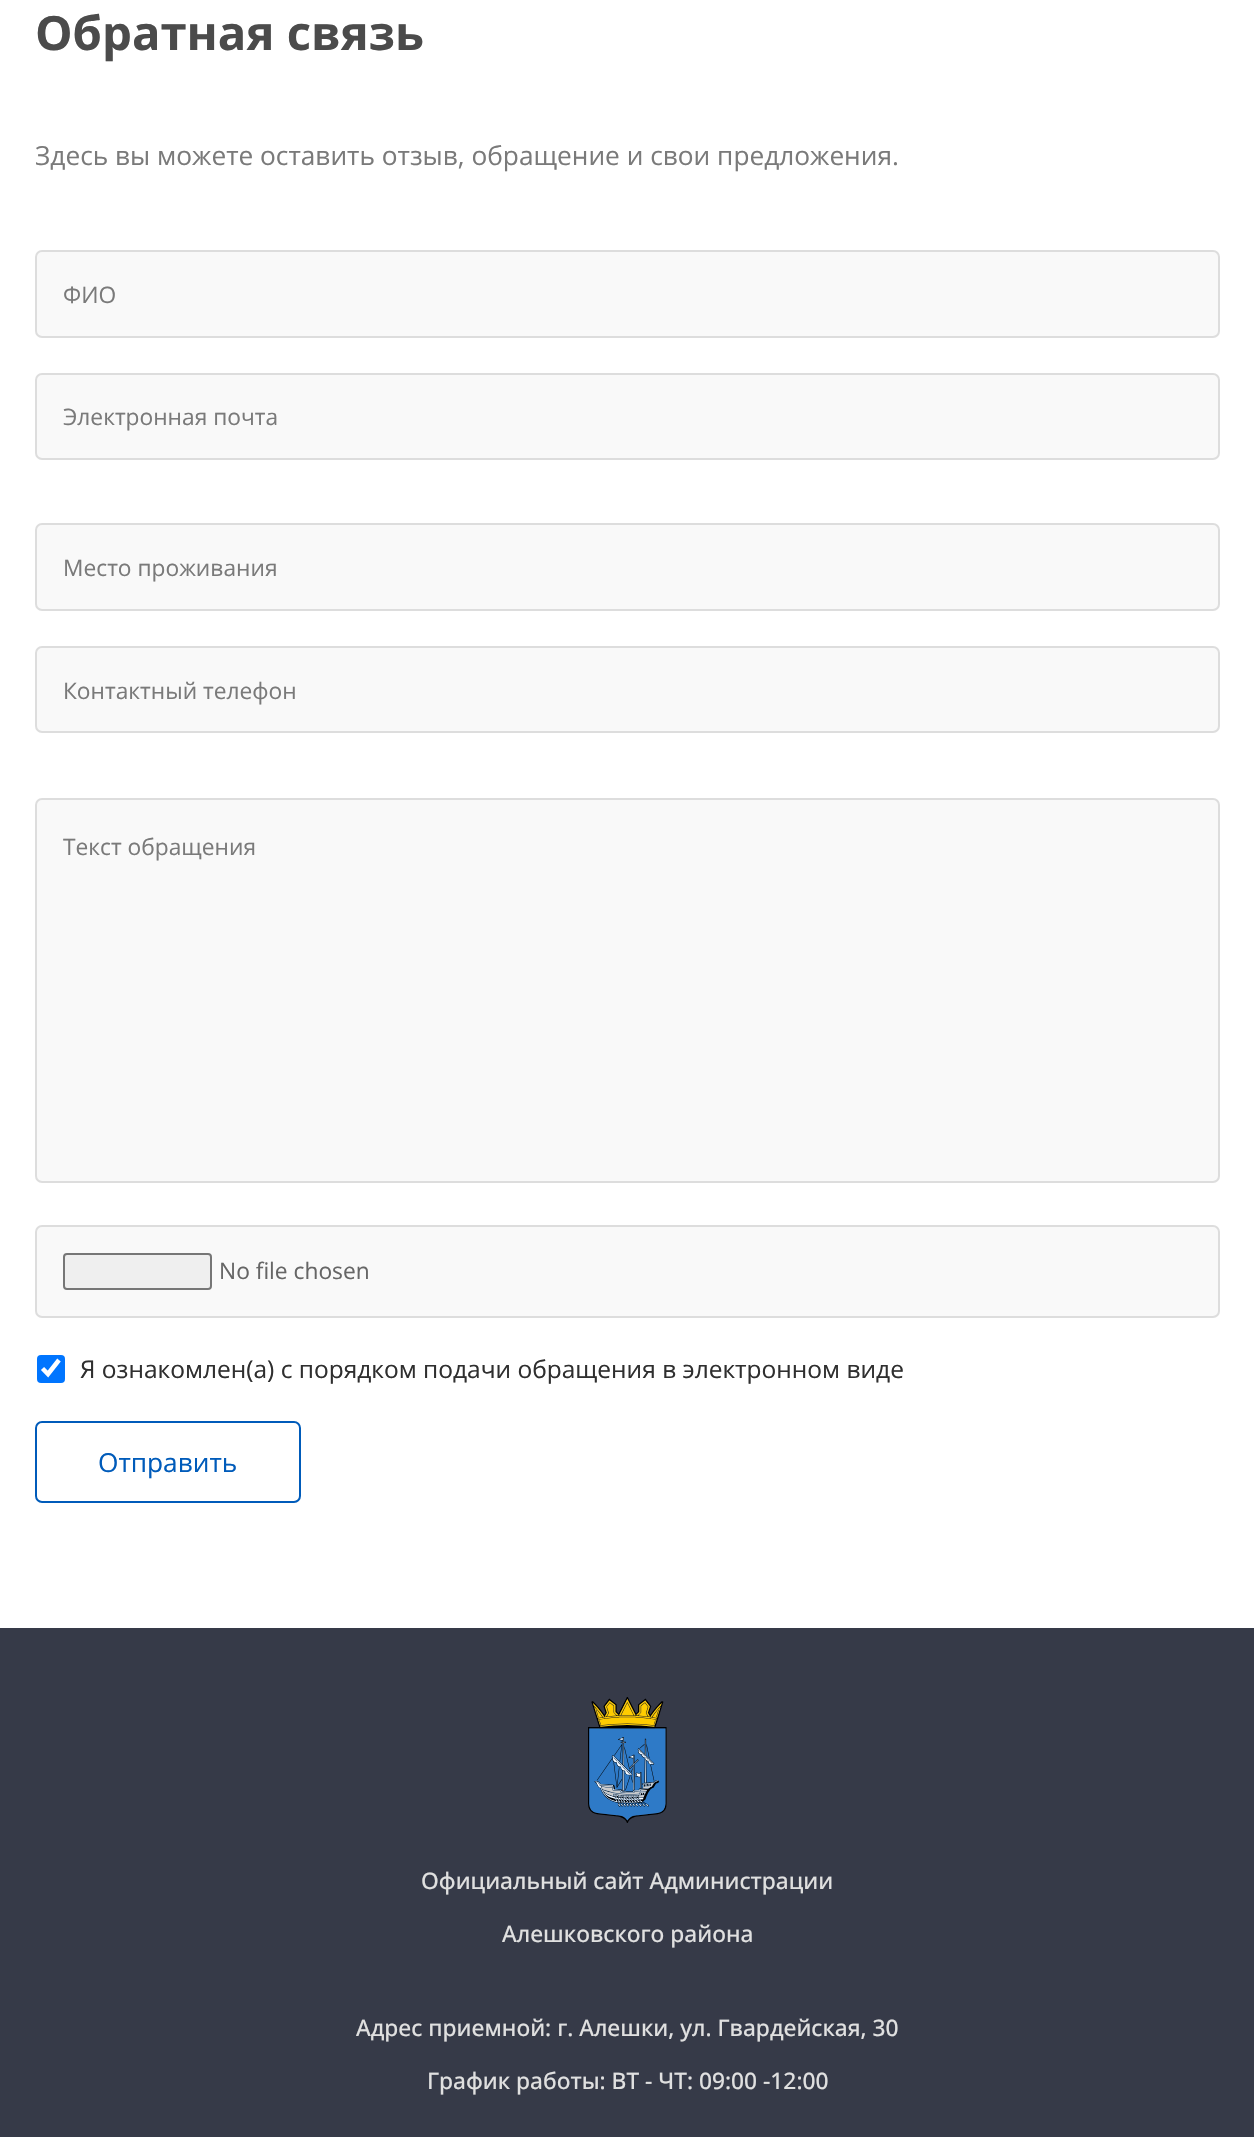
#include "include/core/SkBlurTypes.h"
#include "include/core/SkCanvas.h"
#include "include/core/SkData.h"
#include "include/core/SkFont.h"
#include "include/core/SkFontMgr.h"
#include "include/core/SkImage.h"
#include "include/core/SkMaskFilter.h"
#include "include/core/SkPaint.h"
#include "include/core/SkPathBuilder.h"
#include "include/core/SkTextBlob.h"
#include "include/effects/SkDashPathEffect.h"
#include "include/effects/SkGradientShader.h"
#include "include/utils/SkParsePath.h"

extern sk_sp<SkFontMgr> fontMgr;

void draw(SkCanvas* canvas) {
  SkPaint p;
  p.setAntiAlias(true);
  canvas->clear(SK_ColorWHITE);
  p.setColor(SkColorSetRGB(249, 249, 249));
  canvas->drawRoundRect(SkRect::MakeLTRB(36, 251, 1219, 337), 6, 6, p);
  p.setStyle(SkPaint::kStroke_Style);
  p.setStrokeWidth(2);
  p.setColor(SkColorSetRGB(221, 221, 221));
  canvas->drawRoundRect(SkRect::MakeLTRB(36, 251, 1219, 337), 6, 6, p);
  p.setStyle(SkPaint::kFill_Style);
  p.setColor(SkColorSetRGB(249, 249, 249));
  canvas->drawRoundRect(SkRect::MakeLTRB(36, 374, 1219, 459), 6, 6, p);
  p.setStyle(SkPaint::kStroke_Style);
  p.setColor(SkColorSetRGB(221, 221, 221));
  canvas->drawRoundRect(SkRect::MakeLTRB(36, 374, 1219, 459), 6, 6, p);
  p.setStyle(SkPaint::kFill_Style);
  p.setColor(SkColorSetRGB(249, 249, 249));
  canvas->drawRoundRect(SkRect::MakeLTRB(36, 524, 1219, 610), 6, 6, p);
  p.setStyle(SkPaint::kStroke_Style);
  p.setColor(SkColorSetRGB(221, 221, 221));
  canvas->drawRoundRect(SkRect::MakeLTRB(36, 524, 1219, 610), 6, 6, p);
  p.setStyle(SkPaint::kFill_Style);
  p.setColor(SkColorSetRGB(249, 249, 249));
  canvas->drawRoundRect(SkRect::MakeLTRB(36, 647, 1219, 732), 6, 6, p);
  p.setStyle(SkPaint::kStroke_Style);
  p.setColor(SkColorSetRGB(221, 221, 221));
  canvas->drawRoundRect(SkRect::MakeLTRB(36, 647, 1219, 732), 6, 6, p);
  p.setStyle(SkPaint::kFill_Style);
  p.setColor(SkColorSetRGB(249, 249, 249));
  canvas->drawRoundRect(SkRect::MakeLTRB(36, 799, 1219, 1182), 6, 6, p);
  p.setStyle(SkPaint::kStroke_Style);
  p.setColor(SkColorSetRGB(221, 221, 221));
  canvas->drawRoundRect(SkRect::MakeLTRB(36, 799, 1219, 1182), 6, 6, p);
  p.setStyle(SkPaint::kFill_Style);
  p.setColor(SkColorSetRGB(249, 249, 249));
  canvas->drawRoundRect(SkRect::MakeLTRB(36, 1226, 1219, 1317), 6, 6, p);
  p.setStyle(SkPaint::kStroke_Style);
  p.setColor(SkColorSetRGB(221, 221, 221));
  canvas->drawRoundRect(SkRect::MakeLTRB(36, 1226, 1219, 1317), 6, 6, p);
  p.setStyle(SkPaint::kFill_Style);
  p.setColor(SkColorSetRGB(239, 239, 239));
  canvas->drawRoundRect(SkRect::MakeLTRB(64, 1254, 211, 1289), 3, 3, p);
  p.setStyle(SkPaint::kStroke_Style);
  p.setColor(SkColorSetRGB(118, 118, 118));
  canvas->drawRoundRect(SkRect::MakeLTRB(64, 1254, 211, 1289), 3, 3, p);
  p.setStyle(SkPaint::kFill_Style);
  p.setColor(SkColorSetRGB(0, 117, 255));
  canvas->drawRoundRect(SkRect::MakeLTRB(37, 1355, 65, 1383), 4, 4, p);
  p.setStyle(SkPaint::kStroke_Style);
  p.setStrokeWidth(4.5f);
  p.setColor(SK_ColorWHITE);
  canvas->drawPath(SkPathBuilder().moveTo(42.5f, 1368.5f).lineTo(48, 1374).lineTo(59, 1360).detach(), p);
  p.setStrokeWidth(2);
  p.setColor(SkColorSetRGB(0, 91, 186));
  canvas->drawRoundRect(SkRect::MakeLTRB(36, 1422, 300, 1502), 6, 6, p);
  p.setStyle(SkPaint::kFill_Style);
  p.setColor(SkColorSetRGB(54, 58, 72));
  canvas->drawRect(SkRect::MakeLTRB(0, 1628, 1254, 2137), p);
  canvas->drawImageRect(SkImages::DeferredFromEncodedData(SkData::MakeFromFileName("images/1.png")), SkRect::MakeLTRB(588, 1697, 667, 1823), SkSamplingOptions());
  SkFont font1(fontMgr->matchFamilyStyle("Open Sans", SkFontStyle::Bold()), 47.25f);
  font1.setSubpixel(true);
  p.setColor(SkColorSetRGB(75, 75, 75));
  canvas->drawString("Обратная связь", 35, 50, font1, p);
  SkFont font2(fontMgr->matchFamilyStyle("Open Sans", SkFontStyle::Normal()), 26.25f);
  font2.setSubpixel(true);
  p.setColor(SkColorSetRGB(122, 122, 122));
  canvas->drawString("Здесь вы можете оставить отзыв, обращение и свои предложения.", 35, 165, font2, p);
  SkFont font3(fontMgr->matchFamilyStyle("Open Sans", SkFontStyle::Normal()), 22.75f);
  font3.setSubpixel(true);
  canvas->drawString("ФИО", 63, 303, font3, p);
  canvas->drawString("Электронная почта", 63, 425, font3, p);
  canvas->drawString("Место проживания", 63, 576, font3, p);
  canvas->drawString("Контактный телефон", 63, 699, font3, p);
  canvas->drawString("Текст обращения", 63, 855, font3, p);
  p.setColor(SkColorSetRGB(102, 102, 102));
  canvas->drawString("No file chosen", 219, 1279, font3, p);
  SkFont font4(fontMgr->matchFamilyStyle("Open Sans", SkFontStyle::Normal()), 24.5f);
  font4.setSubpixel(true);
  p.setColor(SkColorSetRGB(47, 47, 47));
  canvas->drawString("Я ознакомлен(а) с порядком подачи обращения в электронном виде", 80, 1378, font4, p);
  p.setColor(SkColorSetRGB(0, 91, 186));
  canvas->drawString("Отправить", 98, 1472, font2, p);
  SkFont font5(fontMgr->matchFamilyStyle("Open Sans", SkFontStyle(500, SkFontStyle::kNormal_Width, SkFontStyle::kUpright_Slant)), 22.75f);
  font5.setSubpixel(true);
  p.setColor(SkColorSetRGB(224, 224, 224));
  canvas->drawString("Официальный сайт Администрации", 421, 1889, font5, p);
  canvas->drawString("Алешковского района", 502, 1942, font5, p);
  canvas->drawString("Адрес приемной: г. Алешки, ул. Гвардейская, 30", 356, 2036, font5, p);
  canvas->drawString("График работы: ВТ - ЧТ: 09:00 -12:00", 427, 2089, font5, p);
}
